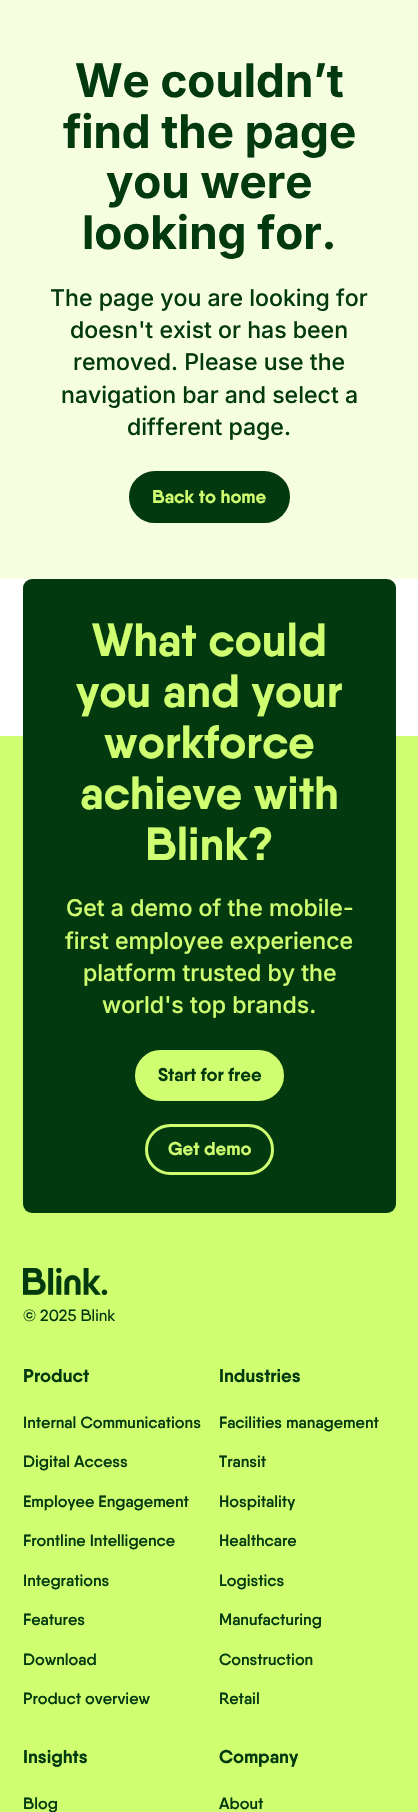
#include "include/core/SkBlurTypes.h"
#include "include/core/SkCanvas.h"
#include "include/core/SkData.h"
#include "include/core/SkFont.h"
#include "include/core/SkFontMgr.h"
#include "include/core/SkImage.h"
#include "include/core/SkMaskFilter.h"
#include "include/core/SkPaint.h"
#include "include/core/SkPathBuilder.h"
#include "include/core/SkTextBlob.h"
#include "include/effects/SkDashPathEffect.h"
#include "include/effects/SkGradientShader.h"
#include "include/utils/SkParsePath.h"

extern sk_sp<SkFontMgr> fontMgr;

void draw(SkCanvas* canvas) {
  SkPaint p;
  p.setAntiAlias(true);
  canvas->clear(SkColorSetRGB(245, 255, 223));
  p.setColor(SkColorSetRGB(3, 57, 15));
  canvas->drawRoundRect(SkRect::MakeLTRB(130.5f, 472.5f, 288.5f, 521.5f), 24.5f, 24.5f, p);
  p.setStyle(SkPaint::kStroke_Style);
  p.setStrokeWidth(3);
  canvas->drawRoundRect(SkRect::MakeLTRB(130.5f, 472.5f, 288.5f, 521.5f), 24.5f, 24.5f, p);
  p.setStyle(SkPaint::kFill_Style);
  p.setColor(SkColorSetRGB(207, 255, 113));
  canvas->drawRect(SkRect::MakeLTRB(0, 736, 418, 1812), p);
  p.setColor(SK_ColorWHITE);
  canvas->drawRect(SkRect::MakeLTRB(0, 579, 418, 736), p);
  p.setColor(SkColorSetRGB(3, 57, 15));
  canvas->drawRoundRect(SkRect::MakeLTRB(23, 579, 396, 1213), 9, 9, p);
  p.setColor(SkColorSetRGB(207, 255, 113));
  canvas->drawRoundRect(SkRect::MakeLTRB(136.5f, 1051.5f, 282.5f, 1099.5f), 24, 24, p);
  p.setStyle(SkPaint::kStroke_Style);
  canvas->drawRoundRect(SkRect::MakeLTRB(136.5f, 1051.5f, 282.5f, 1099.5f), 24, 24, p);
  canvas->drawRoundRect(SkRect::MakeLTRB(146.5f, 1125.5f, 272.5f, 1173.5f), 24, 24, p);
  canvas->drawImageRect(SkImages::DeferredFromEncodedData(SkData::MakeFromFileName("images/1.png")), SkRect::MakeLTRB(23, 1268, 108, 1295), SkSamplingOptions());
  SkFont font1(fontMgr->matchFamilyStyle("Inter", SkFontStyle::Bold()), 46.25f);
  font1.setSubpixel(true);
  p.setStyle(SkPaint::kFill_Style);
  p.setColor(SkColorSetRGB(3, 57, 15));
  canvas->drawString("We couldn’t", 75, 97, font1, p);
  canvas->drawString("find the page", 63, 148, font1, p);
  canvas->drawString("you were", 106, 198, font1, p);
  canvas->drawString("looking for.", 82, 249, font1, p);
  SkFont font2(fontMgr->matchFamilyStyle("Inter", SkFontStyle(500, SkFontStyle::kNormal_Width, SkFontStyle::kUpright_Slant)), 23.1f);
  font2.setSubpixel(true);
  canvas->drawString("The page you are looking for", 50, 306, font2, p);
  canvas->drawString("doesn't exist or has been", 70, 338, font2, p);
  canvas->drawString("removed. Please use the", 73, 370, font2, p);
  canvas->drawString("navigation bar and select a", 61, 403, font2, p);
  canvas->drawString("different page.", 127, 435, font2, p);
  SkFont font3(fontMgr->matchFamilyStyle("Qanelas", SkFontStyle::Bold()), 18.5f);
  font3.setSubpixel(true);
  p.setColor(SkColorSetRGB(207, 255, 113));
  canvas->drawString("Back to home", 152, 503, font3, p);
  SkFont font4(fontMgr->matchFamilyStyle("Qanelas", SkFontStyle::Bold()), 46.25f);
  font4.setSubpixel(true);
  canvas->drawString("What could", 92, 656, font4, p);
  canvas->drawString("you and your", 76, 707, font4, p);
  canvas->drawString("workforce", 104, 758, font4, p);
  canvas->drawString("achieve with", 80, 809, font4, p);
  canvas->drawString("Blink?", 145, 860, font4, p);
  canvas->drawString("Get a demo of the mobile-", 66, 916, font2, p);
  canvas->drawString("first employee experience", 65, 949, font2, p);
  canvas->drawString("platform trusted by the", 83, 981, font2, p);
  canvas->drawString("world's top brands.", 102, 1013, font2, p);
  p.setColor(SkColorSetRGB(3, 57, 15));
  canvas->drawString("Start for free", 158, 1081, font3, p);
  p.setColor(SkColorSetRGB(207, 255, 113));
  canvas->drawString("Get demo", 168, 1155, font3, p);
  SkFont font5(fontMgr->matchFamilyStyle("Qanelas", SkFontStyle(500, SkFontStyle::kNormal_Width, SkFontStyle::kUpright_Slant)), 16.25f);
  font5.setSubpixel(true);
  p.setColor(SkColorSetRGB(3, 57, 15));
  canvas->drawString("© 2025 Blink", 23, 1321, font5, p);
  canvas->drawString("Product", 23, 1382, font3, p);
  SkFont font6(fontMgr->matchFamilyStyle("Qanelas", SkFontStyle(600, SkFontStyle::kNormal_Width, SkFontStyle::kUpright_Slant)), 16.25f);
  font6.setSubpixel(true);
  canvas->drawString("Internal Communications", 23, 1428, font6, p);
  canvas->drawString("Digital Access", 23, 1467, font6, p);
  canvas->drawString("Employee Engagement", 23, 1507, font6, p);
  canvas->drawString("Frontline Intelligence", 23, 1546, font6, p);
  canvas->drawString("Integrations", 23, 1586, font6, p);
  canvas->drawString("Features", 23, 1625, font6, p);
  canvas->drawString("Download", 23, 1665, font6, p);
  canvas->drawString("Product overview", 23, 1704, font6, p);
  canvas->drawString("Industries", 219, 1382, font3, p);
  canvas->drawString("Facilities management", 219, 1428, font6, p);
  canvas->drawString("Transit", 219, 1467, font6, p);
  canvas->drawString("Hospitality", 219, 1507, font6, p);
  canvas->drawString("Healthcare", 219, 1546, font6, p);
  canvas->drawString("Logistics", 219, 1586, font6, p);
  canvas->drawString("Manufacturing", 219, 1625, font6, p);
  canvas->drawString("Construction", 219, 1665, font6, p);
  canvas->drawString("Retail", 219, 1704, font6, p);
  canvas->drawString("Insights", 23, 1763, font3, p);
  canvas->drawString("Blog", 23, 1809, font6, p);
  canvas->drawString("Company", 219, 1763, font3, p);
  canvas->drawString("About", 219, 1809, font6, p);
}
